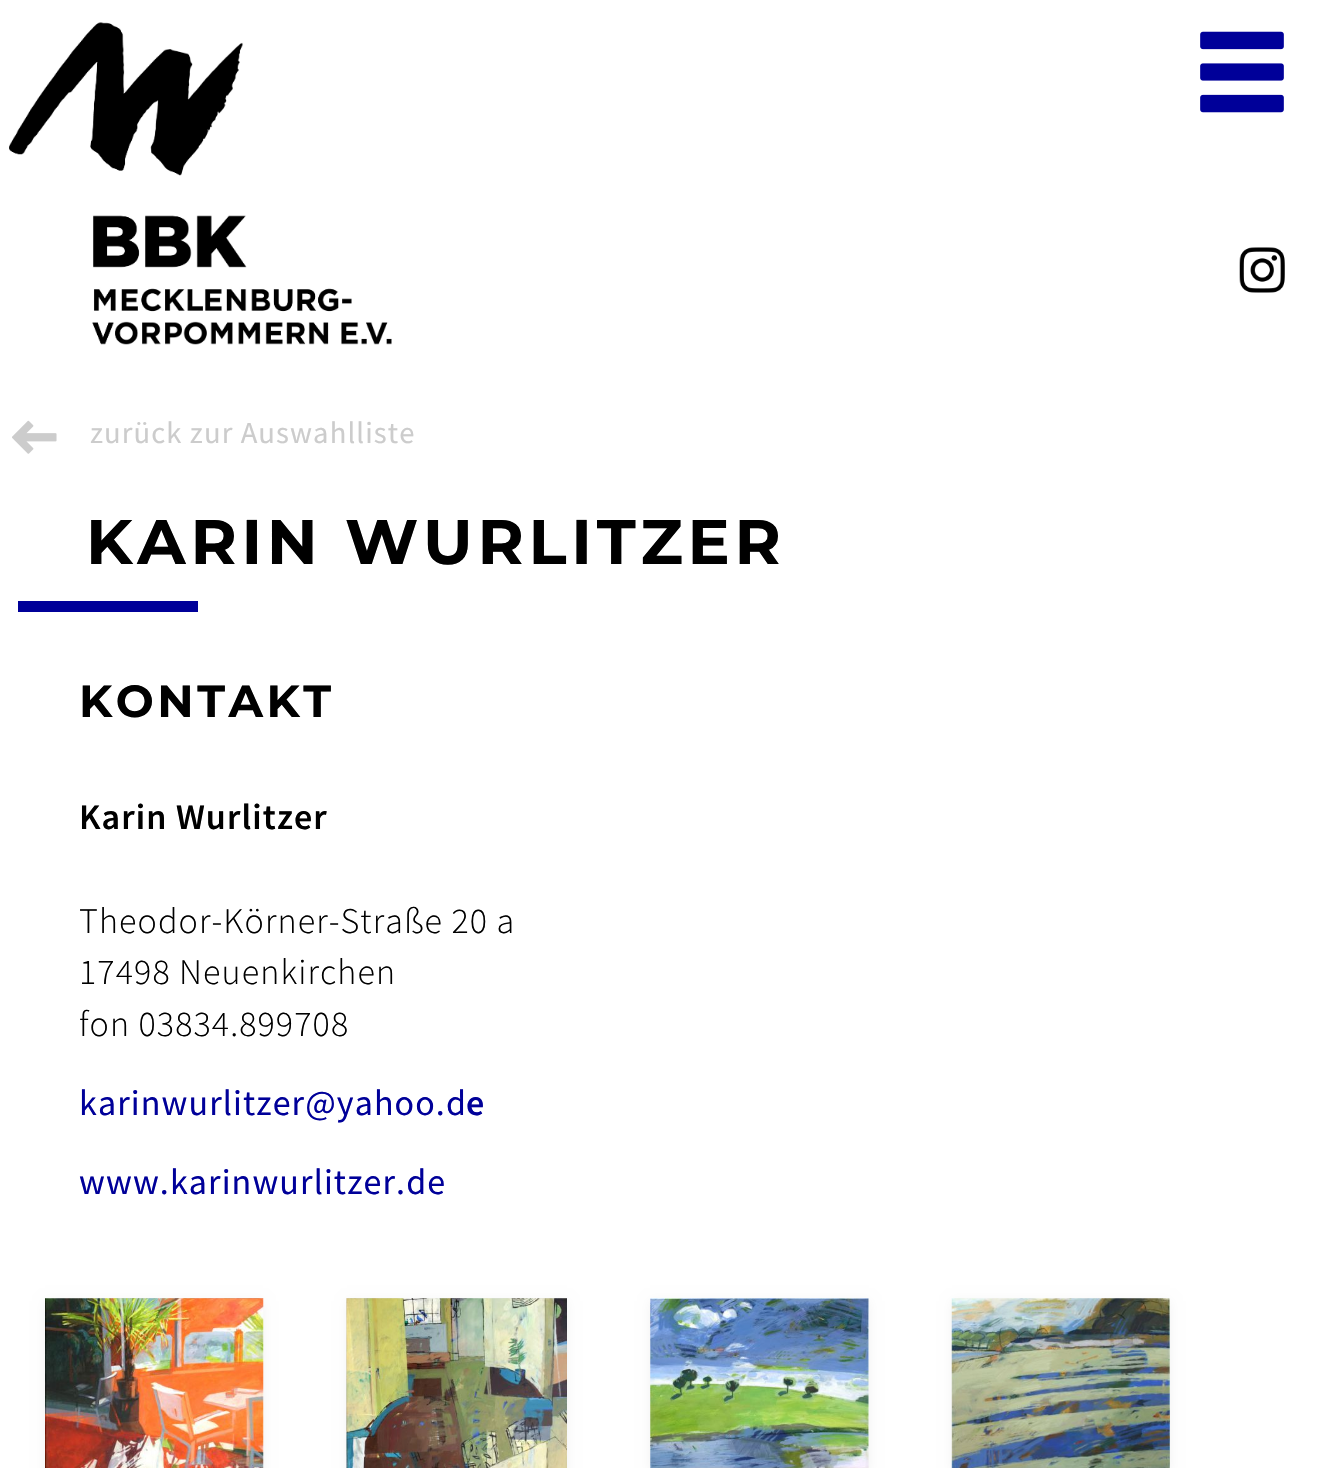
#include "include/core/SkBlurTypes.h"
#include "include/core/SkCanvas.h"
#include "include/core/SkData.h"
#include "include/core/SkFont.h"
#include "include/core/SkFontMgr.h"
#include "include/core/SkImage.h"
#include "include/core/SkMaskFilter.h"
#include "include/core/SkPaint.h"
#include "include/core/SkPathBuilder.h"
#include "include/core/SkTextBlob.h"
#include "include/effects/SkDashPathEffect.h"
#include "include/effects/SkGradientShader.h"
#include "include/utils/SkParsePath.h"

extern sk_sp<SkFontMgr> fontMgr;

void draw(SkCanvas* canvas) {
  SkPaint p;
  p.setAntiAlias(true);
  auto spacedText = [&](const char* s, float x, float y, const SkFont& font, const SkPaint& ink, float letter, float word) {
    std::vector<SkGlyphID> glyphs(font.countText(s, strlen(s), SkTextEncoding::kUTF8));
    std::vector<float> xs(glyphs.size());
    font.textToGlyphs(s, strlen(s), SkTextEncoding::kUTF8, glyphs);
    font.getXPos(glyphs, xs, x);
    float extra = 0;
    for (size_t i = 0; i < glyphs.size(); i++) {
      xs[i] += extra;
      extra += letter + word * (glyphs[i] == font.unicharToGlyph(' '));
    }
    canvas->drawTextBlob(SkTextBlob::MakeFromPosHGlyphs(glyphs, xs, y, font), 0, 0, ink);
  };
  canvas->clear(SK_ColorWHITE);
  canvas->drawImageRect(SkImages::DeferredFromEncodedData(SkData::MakeFromFileName("images/1.png")), SkRect::MakeLTRB(9, 22, 392, 345), SkSamplingOptions());
  canvas->drawImageRect(SkImages::DeferredFromEncodedData(SkData::MakeFromFileName("images/2.png")), SkRect::MakeLTRB(1200, 31, 1284, 113), SkSamplingOptions());
  canvas->drawImageRect(SkImages::DeferredFromEncodedData(SkData::MakeFromFileName("images/3.png")), SkRect::MakeLTRB(1239, 247, 1285, 293), SkSamplingOptions());
  canvas->drawImageRect(SkImages::DeferredFromEncodedData(SkData::MakeFromFileName("images/4.png")), SkRect::MakeLTRB(12, 420, 57, 454), SkSamplingOptions());
  p.setColor(SkColorSetRGB(0, 0, 153));
  canvas->drawRect(SkRect::MakeLTRB(18, 601, 198, 612), p);
  p.setColor(SkColorSetARGB(13, 0, 0, 0));
  p.setMaskFilter(SkMaskFilter::MakeBlur(kNormal_SkBlurStyle, 5.5f));
  canvas->drawRect(SkRect::MakeLTRB(45, 1301, 263, 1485), p);
  p.setMaskFilter(nullptr);
  canvas->drawImageRect(SkImages::DeferredFromEncodedData(SkData::MakeFromFileName("images/5.png")), SkRect::MakeLTRB(45, 1298, 264, 1468), SkSamplingOptions());
  p.setMaskFilter(SkMaskFilter::MakeBlur(kNormal_SkBlurStyle, 5.5f));
  canvas->drawRect(SkRect::MakeLTRB(347, 1301, 567, 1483), p);
  p.setMaskFilter(nullptr);
  canvas->drawImageRect(SkImages::DeferredFromEncodedData(SkData::MakeFromFileName("images/6.png")), SkRect::MakeLTRB(346, 1298, 567, 1468), SkSamplingOptions());
  p.setMaskFilter(SkMaskFilter::MakeBlur(kNormal_SkBlurStyle, 5.5f));
  canvas->drawRect(SkRect::MakeLTRB(650, 1301, 869, 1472), p);
  p.setMaskFilter(nullptr);
  canvas->drawImageRect(SkImages::DeferredFromEncodedData(SkData::MakeFromFileName("images/7.png")), SkRect::MakeLTRB(650, 1298, 869, 1468), SkSamplingOptions());
  p.setMaskFilter(SkMaskFilter::MakeBlur(kNormal_SkBlurStyle, 5.5f));
  canvas->drawRect(SkRect::MakeLTRB(952, 1301, 1170, 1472), p);
  p.setMaskFilter(nullptr);
  canvas->drawImageRect(SkImages::DeferredFromEncodedData(SkData::MakeFromFileName("images/8.png")), SkRect::MakeLTRB(951, 1298, 1170, 1468), SkSamplingOptions());
  SkFont font1(fontMgr->matchFamilyStyle("Source Sans Pro", SkFontStyle::Normal()), 30.6f);
  font1.setSubpixel(true);
  p.setColor(SkColorSetRGB(204, 204, 204));
  spacedText("zurück zur Auswahlliste", 90, 443, font1, p, 1.1f, 0);
  SkFont font2(fontMgr->matchFamilyStyle("Montserrat", SkFontStyle::Bold()), 63);
  font2.setSubpixel(true);
  p.setColor(SK_ColorBLACK);
  spacedText("KARIN WURLITZER", 86, 564, font2, p, 4.75f, 0);
  SkFont font3(fontMgr->matchFamilyStyle("Montserrat", SkFontStyle::Bold()), 45);
  font3.setSubpixel(true);
  spacedText("KONTAKT", 79, 717, font3, p, 3.5f, 0);
  SkFont font4(fontMgr->matchFamilyStyle("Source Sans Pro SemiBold", SkFontStyle(600, SkFontStyle::kNormal_Width, SkFontStyle::kUpright_Slant)), 36);
  font4.setSubpixel(true);
  spacedText("Karin Wurlitzer", 79, 829, font4, p, 1.1f, 0);
  SkFont font5(fontMgr->matchFamilyStyle("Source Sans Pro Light", SkFontStyle(300, SkFontStyle::kNormal_Width, SkFontStyle::kUpright_Slant)), 36);
  font5.setSubpixel(true);
  spacedText("Theodor-Körner-Straße 20 a", 79, 933, font5, p, 1.1f, 0);
  spacedText("17498 Neuenkirchen", 79, 984, font5, p, 1.1f, 0);
  spacedText("fon 03834.899708", 79, 1036, font5, p, 1.1f, 0);
  SkFont font6(fontMgr->matchFamilyStyle("Source Sans Pro", SkFontStyle::Normal()), 36);
  font6.setSubpixel(true);
  p.setColor(SkColorSetRGB(0, 0, 153));
  spacedText("karinwurlitzer@yahoo.d", 79, 1115, font6, p, 1.1f, 0);
  spacedText("e", 466, 1115, font4, p, 1.1f, 0);
  spacedText("www.karinwurlitzer.de", 79, 1194, font6, p, 1.1f, 0);
}
